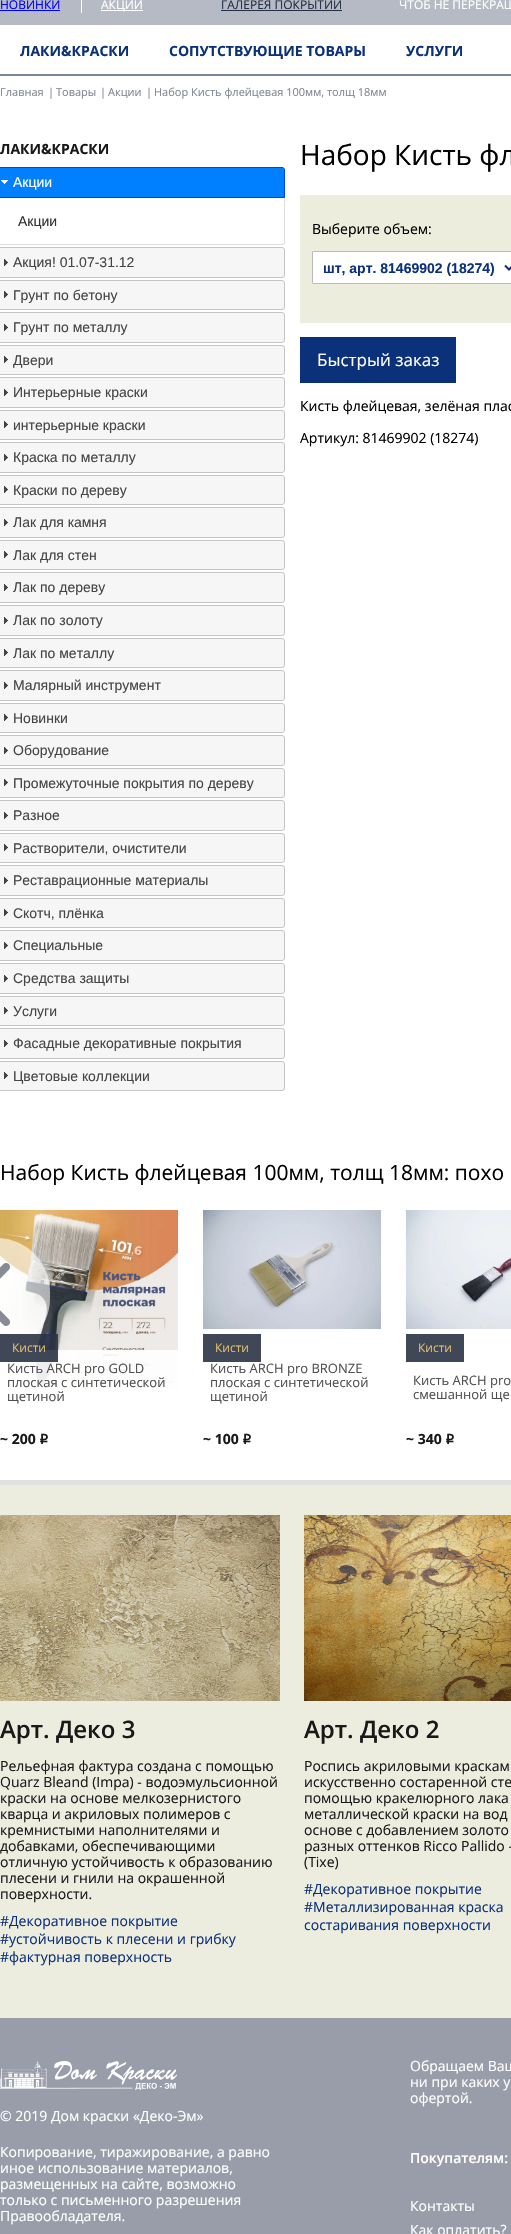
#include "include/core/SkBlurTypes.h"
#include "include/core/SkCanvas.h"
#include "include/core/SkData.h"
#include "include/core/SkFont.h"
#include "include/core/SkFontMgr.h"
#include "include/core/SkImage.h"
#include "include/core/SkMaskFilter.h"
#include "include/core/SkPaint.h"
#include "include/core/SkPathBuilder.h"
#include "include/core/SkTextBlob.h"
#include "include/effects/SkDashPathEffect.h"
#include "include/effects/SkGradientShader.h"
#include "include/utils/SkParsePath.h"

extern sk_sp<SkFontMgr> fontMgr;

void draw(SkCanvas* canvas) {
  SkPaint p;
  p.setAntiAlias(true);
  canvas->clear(SkColorSetRGB(181, 186, 196));
  p.setColor(SkColorSetRGB(0, 0, 255));
  canvas->drawRect(SkRect::MakeLTRB(0, 10, 60, 11), p);
  p.setColor(SK_ColorWHITE);
  canvas->drawRect(SkRect::MakeLTRB(81, 0, 82, 13), p);
  canvas->drawRect(SkRect::MakeLTRB(101, 10, 143, 11), p);
  p.setColor(SkColorSetRGB(36, 47, 70));
  canvas->drawRect(SkRect::MakeLTRB(221, 10, 342, 11), p);
  p.setColor(SK_ColorWHITE);
  canvas->drawRect(SkRect::MakeLTRB(0, 25, 511, 74), p);
  p.setColor(SkColorSetRGB(122, 134, 160));
  canvas->drawRect(SkRect::MakeLTRB(0, 74, 511, 76), p);
  p.setColor(SK_ColorWHITE);
  canvas->drawRect(SkRect::MakeLTRB(0, 76, 511, 1480), p);
  p.setColor(SkColorSetRGB(0, 127, 255));
  canvas->drawPath(SkPathBuilder().moveTo(-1, 167.5f).lineTo(282, 167.5f).cubicTo(283.5f, 167.5f, 284.5f, 168.5f, 284.5f, 170).lineTo(284.5f, 197.5f).lineTo(-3.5f, 197.5f).lineTo(-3.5f, 170).cubicTo(-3.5f, 168.5f, -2.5f, 167.5f, -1, 167.5f).close().detach(), p);
  p.setStyle(SkPaint::kStroke_Style);
  p.setStrokeWidth(1);
  p.setColor(SkColorSetRGB(0, 62, 255));
  canvas->drawPath(SkPathBuilder().moveTo(-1, 167.5f).lineTo(282, 167.5f).cubicTo(283.5f, 167.5f, 284.5f, 168.5f, 284.5f, 170).lineTo(284.5f, 197.5f).lineTo(-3.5f, 197.5f).lineTo(-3.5f, 170).cubicTo(-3.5f, 168.5f, -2.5f, 167.5f, -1, 167.5f).close().detach(), p);
  canvas->drawImageRect(SkImages::DeferredFromEncodedData(SkData::MakeFromFileName("images/1.png")), SkRect::MakeLTRB(1, 180, 8, 184), SkSamplingOptions());
  p.setStyle(SkPaint::kFill_Style);
  p.setColor(SkColorSetRGB(221, 221, 221));
  canvas->drawPath(SkPathBuilder(SkPathFillType::kEvenOdd).moveTo(-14, 198).lineTo(285, 198).lineTo(285, 242).cubicTo(285, 244, 284, 245, 282, 245).lineTo(-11, 245).cubicTo(-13, 245, -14, 244, -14, 242).close().moveTo(-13, 198).lineTo(284, 198).lineTo(284, 242).cubicTo(284, 243, 283, 244, 282, 244).lineTo(-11, 244).cubicTo(-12, 244, -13, 243, -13, 242).close().detach(), p);
  p.setColor(SkColorSetRGB(246, 246, 246));
  canvas->drawRoundRect(SkRect::MakeLTRB(-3.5f, 247.5f, 284.5f, 277.5f), 2.5f, 2.5f, p);
  p.setStyle(SkPaint::kStroke_Style);
  p.setColor(SkColorSetRGB(197, 197, 197));
  canvas->drawRoundRect(SkRect::MakeLTRB(-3.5f, 247.5f, 284.5f, 277.5f), 2.5f, 2.5f, p);
  canvas->drawImageRect(SkImages::DeferredFromEncodedData(SkData::MakeFromFileName("images/2.png")), SkRect::MakeLTRB(4, 259, 8, 266), SkSamplingOptions());
  p.setStyle(SkPaint::kFill_Style);
  p.setColor(SkColorSetRGB(246, 246, 246));
  canvas->drawRoundRect(SkRect::MakeLTRB(-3.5f, 280.5f, 284.5f, 309.5f), 2.5f, 2.5f, p);
  p.setStyle(SkPaint::kStroke_Style);
  p.setColor(SkColorSetRGB(197, 197, 197));
  canvas->drawRoundRect(SkRect::MakeLTRB(-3.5f, 280.5f, 284.5f, 309.5f), 2.5f, 2.5f, p);
  canvas->drawImageRect(SkImages::DeferredFromEncodedData(SkData::MakeFromFileName("images/2.png")), SkRect::MakeLTRB(4, 291, 8, 298), SkSamplingOptions());
  p.setStyle(SkPaint::kFill_Style);
  p.setColor(SkColorSetRGB(246, 246, 246));
  canvas->drawRoundRect(SkRect::MakeLTRB(-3.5f, 312.5f, 284.5f, 342.5f), 2.5f, 2.5f, p);
  p.setStyle(SkPaint::kStroke_Style);
  p.setColor(SkColorSetRGB(197, 197, 197));
  canvas->drawRoundRect(SkRect::MakeLTRB(-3.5f, 312.5f, 284.5f, 342.5f), 2.5f, 2.5f, p);
  canvas->drawImageRect(SkImages::DeferredFromEncodedData(SkData::MakeFromFileName("images/2.png")), SkRect::MakeLTRB(4, 324, 8, 331), SkSamplingOptions());
  p.setStyle(SkPaint::kFill_Style);
  p.setColor(SkColorSetRGB(246, 246, 246));
  canvas->drawRoundRect(SkRect::MakeLTRB(-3.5f, 345.5f, 284.5f, 374.5f), 2.5f, 2.5f, p);
  p.setStyle(SkPaint::kStroke_Style);
  p.setColor(SkColorSetRGB(197, 197, 197));
  canvas->drawRoundRect(SkRect::MakeLTRB(-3.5f, 345.5f, 284.5f, 374.5f), 2.5f, 2.5f, p);
  canvas->drawImageRect(SkImages::DeferredFromEncodedData(SkData::MakeFromFileName("images/2.png")), SkRect::MakeLTRB(4, 356, 8, 363), SkSamplingOptions());
  p.setStyle(SkPaint::kFill_Style);
  p.setColor(SkColorSetRGB(246, 246, 246));
  canvas->drawRoundRect(SkRect::MakeLTRB(-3.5f, 377.5f, 284.5f, 407.5f), 2.5f, 2.5f, p);
  p.setStyle(SkPaint::kStroke_Style);
  p.setColor(SkColorSetRGB(197, 197, 197));
  canvas->drawRoundRect(SkRect::MakeLTRB(-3.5f, 377.5f, 284.5f, 407.5f), 2.5f, 2.5f, p);
  canvas->drawImageRect(SkImages::DeferredFromEncodedData(SkData::MakeFromFileName("images/2.png")), SkRect::MakeLTRB(4, 389, 8, 396), SkSamplingOptions());
  p.setStyle(SkPaint::kFill_Style);
  p.setColor(SkColorSetRGB(246, 246, 246));
  canvas->drawRoundRect(SkRect::MakeLTRB(-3.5f, 410.5f, 284.5f, 439.5f), 2.5f, 2.5f, p);
  p.setStyle(SkPaint::kStroke_Style);
  p.setColor(SkColorSetRGB(197, 197, 197));
  canvas->drawRoundRect(SkRect::MakeLTRB(-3.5f, 410.5f, 284.5f, 439.5f), 2.5f, 2.5f, p);
  canvas->drawImageRect(SkImages::DeferredFromEncodedData(SkData::MakeFromFileName("images/2.png")), SkRect::MakeLTRB(4, 421, 8, 428), SkSamplingOptions());
  p.setStyle(SkPaint::kFill_Style);
  p.setColor(SkColorSetRGB(246, 246, 246));
  canvas->drawRoundRect(SkRect::MakeLTRB(-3.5f, 442.5f, 284.5f, 472.5f), 2.5f, 2.5f, p);
  p.setStyle(SkPaint::kStroke_Style);
  p.setColor(SkColorSetRGB(197, 197, 197));
  canvas->drawRoundRect(SkRect::MakeLTRB(-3.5f, 442.5f, 284.5f, 472.5f), 2.5f, 2.5f, p);
  canvas->drawImageRect(SkImages::DeferredFromEncodedData(SkData::MakeFromFileName("images/2.png")), SkRect::MakeLTRB(4, 454, 8, 461), SkSamplingOptions());
  p.setStyle(SkPaint::kFill_Style);
  p.setColor(SkColorSetRGB(246, 246, 246));
  canvas->drawRoundRect(SkRect::MakeLTRB(-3.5f, 475.5f, 284.5f, 504.5f), 2.5f, 2.5f, p);
  p.setStyle(SkPaint::kStroke_Style);
  p.setColor(SkColorSetRGB(197, 197, 197));
  canvas->drawRoundRect(SkRect::MakeLTRB(-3.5f, 475.5f, 284.5f, 504.5f), 2.5f, 2.5f, p);
  canvas->drawImageRect(SkImages::DeferredFromEncodedData(SkData::MakeFromFileName("images/2.png")), SkRect::MakeLTRB(4, 486, 8, 493), SkSamplingOptions());
  p.setStyle(SkPaint::kFill_Style);
  p.setColor(SkColorSetRGB(246, 246, 246));
  canvas->drawRoundRect(SkRect::MakeLTRB(-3.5f, 507.5f, 284.5f, 537.5f), 2.5f, 2.5f, p);
  p.setStyle(SkPaint::kStroke_Style);
  p.setColor(SkColorSetRGB(197, 197, 197));
  canvas->drawRoundRect(SkRect::MakeLTRB(-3.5f, 507.5f, 284.5f, 537.5f), 2.5f, 2.5f, p);
  canvas->drawImageRect(SkImages::DeferredFromEncodedData(SkData::MakeFromFileName("images/2.png")), SkRect::MakeLTRB(4, 519, 8, 526), SkSamplingOptions());
  p.setStyle(SkPaint::kFill_Style);
  p.setColor(SkColorSetRGB(246, 246, 246));
  canvas->drawRoundRect(SkRect::MakeLTRB(-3.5f, 540.5f, 284.5f, 569.5f), 2.5f, 2.5f, p);
  p.setStyle(SkPaint::kStroke_Style);
  p.setColor(SkColorSetRGB(197, 197, 197));
  canvas->drawRoundRect(SkRect::MakeLTRB(-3.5f, 540.5f, 284.5f, 569.5f), 2.5f, 2.5f, p);
  canvas->drawImageRect(SkImages::DeferredFromEncodedData(SkData::MakeFromFileName("images/2.png")), SkRect::MakeLTRB(4, 551, 8, 558), SkSamplingOptions());
  p.setStyle(SkPaint::kFill_Style);
  p.setColor(SkColorSetRGB(246, 246, 246));
  canvas->drawRoundRect(SkRect::MakeLTRB(-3.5f, 572.5f, 284.5f, 602.5f), 2.5f, 2.5f, p);
  p.setStyle(SkPaint::kStroke_Style);
  p.setColor(SkColorSetRGB(197, 197, 197));
  canvas->drawRoundRect(SkRect::MakeLTRB(-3.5f, 572.5f, 284.5f, 602.5f), 2.5f, 2.5f, p);
  canvas->drawImageRect(SkImages::DeferredFromEncodedData(SkData::MakeFromFileName("images/2.png")), SkRect::MakeLTRB(4, 584, 8, 591), SkSamplingOptions());
  p.setStyle(SkPaint::kFill_Style);
  p.setColor(SkColorSetRGB(246, 246, 246));
  canvas->drawRoundRect(SkRect::MakeLTRB(-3.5f, 605.5f, 284.5f, 635.5f), 2.5f, 2.5f, p);
  p.setStyle(SkPaint::kStroke_Style);
  p.setColor(SkColorSetRGB(197, 197, 197));
  canvas->drawRoundRect(SkRect::MakeLTRB(-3.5f, 605.5f, 284.5f, 635.5f), 2.5f, 2.5f, p);
  canvas->drawImageRect(SkImages::DeferredFromEncodedData(SkData::MakeFromFileName("images/2.png")), SkRect::MakeLTRB(4, 617, 8, 624), SkSamplingOptions());
  p.setStyle(SkPaint::kFill_Style);
  p.setColor(SkColorSetRGB(246, 246, 246));
  canvas->drawRoundRect(SkRect::MakeLTRB(-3.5f, 638.5f, 284.5f, 667.5f), 2.5f, 2.5f, p);
  p.setStyle(SkPaint::kStroke_Style);
  p.setColor(SkColorSetRGB(197, 197, 197));
  canvas->drawRoundRect(SkRect::MakeLTRB(-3.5f, 638.5f, 284.5f, 667.5f), 2.5f, 2.5f, p);
  canvas->drawImageRect(SkImages::DeferredFromEncodedData(SkData::MakeFromFileName("images/2.png")), SkRect::MakeLTRB(4, 649, 8, 656), SkSamplingOptions());
  p.setStyle(SkPaint::kFill_Style);
  p.setColor(SkColorSetRGB(246, 246, 246));
  canvas->drawRoundRect(SkRect::MakeLTRB(-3.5f, 670.5f, 284.5f, 700.5f), 2.5f, 2.5f, p);
  p.setStyle(SkPaint::kStroke_Style);
  p.setColor(SkColorSetRGB(197, 197, 197));
  canvas->drawRoundRect(SkRect::MakeLTRB(-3.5f, 670.5f, 284.5f, 700.5f), 2.5f, 2.5f, p);
  canvas->drawImageRect(SkImages::DeferredFromEncodedData(SkData::MakeFromFileName("images/2.png")), SkRect::MakeLTRB(4, 682, 8, 689), SkSamplingOptions());
  p.setStyle(SkPaint::kFill_Style);
  p.setColor(SkColorSetRGB(246, 246, 246));
  canvas->drawRoundRect(SkRect::MakeLTRB(-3.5f, 703.5f, 284.5f, 732.5f), 2.5f, 2.5f, p);
  p.setStyle(SkPaint::kStroke_Style);
  p.setColor(SkColorSetRGB(197, 197, 197));
  canvas->drawRoundRect(SkRect::MakeLTRB(-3.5f, 703.5f, 284.5f, 732.5f), 2.5f, 2.5f, p);
  canvas->drawImageRect(SkImages::DeferredFromEncodedData(SkData::MakeFromFileName("images/2.png")), SkRect::MakeLTRB(4, 714, 8, 721), SkSamplingOptions());
  p.setStyle(SkPaint::kFill_Style);
  p.setColor(SkColorSetRGB(246, 246, 246));
  canvas->drawRoundRect(SkRect::MakeLTRB(-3.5f, 735.5f, 284.5f, 765.5f), 2.5f, 2.5f, p);
  p.setStyle(SkPaint::kStroke_Style);
  p.setColor(SkColorSetRGB(197, 197, 197));
  canvas->drawRoundRect(SkRect::MakeLTRB(-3.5f, 735.5f, 284.5f, 765.5f), 2.5f, 2.5f, p);
  canvas->drawImageRect(SkImages::DeferredFromEncodedData(SkData::MakeFromFileName("images/2.png")), SkRect::MakeLTRB(4, 747, 8, 754), SkSamplingOptions());
  p.setStyle(SkPaint::kFill_Style);
  p.setColor(SkColorSetRGB(246, 246, 246));
  canvas->drawRoundRect(SkRect::MakeLTRB(-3.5f, 768.5f, 284.5f, 797.5f), 2.5f, 2.5f, p);
  p.setStyle(SkPaint::kStroke_Style);
  p.setColor(SkColorSetRGB(197, 197, 197));
  canvas->drawRoundRect(SkRect::MakeLTRB(-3.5f, 768.5f, 284.5f, 797.5f), 2.5f, 2.5f, p);
  canvas->drawImageRect(SkImages::DeferredFromEncodedData(SkData::MakeFromFileName("images/2.png")), SkRect::MakeLTRB(4, 779, 8, 786), SkSamplingOptions());
  p.setStyle(SkPaint::kFill_Style);
  p.setColor(SkColorSetRGB(246, 246, 246));
  canvas->drawRoundRect(SkRect::MakeLTRB(-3.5f, 800.5f, 284.5f, 830.5f), 2.5f, 2.5f, p);
  p.setStyle(SkPaint::kStroke_Style);
  p.setColor(SkColorSetRGB(197, 197, 197));
  canvas->drawRoundRect(SkRect::MakeLTRB(-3.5f, 800.5f, 284.5f, 830.5f), 2.5f, 2.5f, p);
  canvas->drawImageRect(SkImages::DeferredFromEncodedData(SkData::MakeFromFileName("images/2.png")), SkRect::MakeLTRB(4, 812, 8, 819), SkSamplingOptions());
  p.setStyle(SkPaint::kFill_Style);
  p.setColor(SkColorSetRGB(246, 246, 246));
  canvas->drawRoundRect(SkRect::MakeLTRB(-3.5f, 833.5f, 284.5f, 862.5f), 2.5f, 2.5f, p);
  p.setStyle(SkPaint::kStroke_Style);
  p.setColor(SkColorSetRGB(197, 197, 197));
  canvas->drawRoundRect(SkRect::MakeLTRB(-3.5f, 833.5f, 284.5f, 862.5f), 2.5f, 2.5f, p);
  canvas->drawImageRect(SkImages::DeferredFromEncodedData(SkData::MakeFromFileName("images/2.png")), SkRect::MakeLTRB(4, 844, 8, 851), SkSamplingOptions());
  p.setStyle(SkPaint::kFill_Style);
  p.setColor(SkColorSetRGB(246, 246, 246));
  canvas->drawRoundRect(SkRect::MakeLTRB(-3.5f, 865.5f, 284.5f, 895.5f), 2.5f, 2.5f, p);
  p.setStyle(SkPaint::kStroke_Style);
  p.setColor(SkColorSetRGB(197, 197, 197));
  canvas->drawRoundRect(SkRect::MakeLTRB(-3.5f, 865.5f, 284.5f, 895.5f), 2.5f, 2.5f, p);
  canvas->drawImageRect(SkImages::DeferredFromEncodedData(SkData::MakeFromFileName("images/2.png")), SkRect::MakeLTRB(4, 877, 8, 884), SkSamplingOptions());
  p.setStyle(SkPaint::kFill_Style);
  p.setColor(SkColorSetRGB(246, 246, 246));
  canvas->drawRoundRect(SkRect::MakeLTRB(-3.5f, 898.5f, 284.5f, 927.5f), 2.5f, 2.5f, p);
  p.setStyle(SkPaint::kStroke_Style);
  p.setColor(SkColorSetRGB(197, 197, 197));
  canvas->drawRoundRect(SkRect::MakeLTRB(-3.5f, 898.5f, 284.5f, 927.5f), 2.5f, 2.5f, p);
  canvas->drawImageRect(SkImages::DeferredFromEncodedData(SkData::MakeFromFileName("images/2.png")), SkRect::MakeLTRB(4, 909, 8, 916), SkSamplingOptions());
  p.setStyle(SkPaint::kFill_Style);
  p.setColor(SkColorSetRGB(246, 246, 246));
  canvas->drawRoundRect(SkRect::MakeLTRB(-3.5f, 930.5f, 284.5f, 960.5f), 2.5f, 2.5f, p);
  p.setStyle(SkPaint::kStroke_Style);
  p.setColor(SkColorSetRGB(197, 197, 197));
  canvas->drawRoundRect(SkRect::MakeLTRB(-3.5f, 930.5f, 284.5f, 960.5f), 2.5f, 2.5f, p);
  canvas->drawImageRect(SkImages::DeferredFromEncodedData(SkData::MakeFromFileName("images/2.png")), SkRect::MakeLTRB(4, 942, 8, 949), SkSamplingOptions());
  p.setStyle(SkPaint::kFill_Style);
  p.setColor(SkColorSetRGB(246, 246, 246));
  canvas->drawRoundRect(SkRect::MakeLTRB(-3.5f, 963.5f, 284.5f, 993.5f), 2.5f, 2.5f, p);
  p.setStyle(SkPaint::kStroke_Style);
  p.setColor(SkColorSetRGB(197, 197, 197));
  canvas->drawRoundRect(SkRect::MakeLTRB(-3.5f, 963.5f, 284.5f, 993.5f), 2.5f, 2.5f, p);
  canvas->drawImageRect(SkImages::DeferredFromEncodedData(SkData::MakeFromFileName("images/2.png")), SkRect::MakeLTRB(4, 975, 8, 982), SkSamplingOptions());
  p.setStyle(SkPaint::kFill_Style);
  p.setColor(SkColorSetRGB(246, 246, 246));
  canvas->drawRoundRect(SkRect::MakeLTRB(-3.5f, 996.5f, 284.5f, 1025.5f), 2.5f, 2.5f, p);
  p.setStyle(SkPaint::kStroke_Style);
  p.setColor(SkColorSetRGB(197, 197, 197));
  canvas->drawRoundRect(SkRect::MakeLTRB(-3.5f, 996.5f, 284.5f, 1025.5f), 2.5f, 2.5f, p);
  canvas->drawImageRect(SkImages::DeferredFromEncodedData(SkData::MakeFromFileName("images/2.png")), SkRect::MakeLTRB(4, 1007, 8, 1014), SkSamplingOptions());
  p.setStyle(SkPaint::kFill_Style);
  p.setColor(SkColorSetRGB(246, 246, 246));
  canvas->drawRoundRect(SkRect::MakeLTRB(-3.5f, 1028.5f, 284.5f, 1058.5f), 2.5f, 2.5f, p);
  p.setStyle(SkPaint::kStroke_Style);
  p.setColor(SkColorSetRGB(197, 197, 197));
  canvas->drawRoundRect(SkRect::MakeLTRB(-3.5f, 1028.5f, 284.5f, 1058.5f), 2.5f, 2.5f, p);
  canvas->drawImageRect(SkImages::DeferredFromEncodedData(SkData::MakeFromFileName("images/2.png")), SkRect::MakeLTRB(4, 1040, 8, 1047), SkSamplingOptions());
  p.setStyle(SkPaint::kFill_Style);
  p.setColor(SkColorSetRGB(246, 246, 246));
  canvas->drawRoundRect(SkRect::MakeLTRB(-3.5f, 1061.5f, 284.5f, 1090.5f), 2.5f, 2.5f, p);
  p.setStyle(SkPaint::kStroke_Style);
  p.setColor(SkColorSetRGB(197, 197, 197));
  canvas->drawRoundRect(SkRect::MakeLTRB(-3.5f, 1061.5f, 284.5f, 1090.5f), 2.5f, 2.5f, p);
  canvas->drawImageRect(SkImages::DeferredFromEncodedData(SkData::MakeFromFileName("images/2.png")), SkRect::MakeLTRB(4, 1072, 8, 1079), SkSamplingOptions());
  p.setStyle(SkPaint::kFill_Style);
  p.setColor(SkColorSetRGB(237, 237, 221));
  canvas->drawRect(SkRect::MakeLTRB(300, 195, 511, 323), p);
  p.setColor(SK_ColorWHITE);
  canvas->drawRoundRect(SkRect::MakeLTRB(312.5f, 251.5f, 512.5f, 283.5f), 0.5f, 0.5f, p);
  p.setStyle(SkPaint::kStroke_Style);
  p.setColor(SkColorSetRGB(184, 186, 189));
  canvas->drawRoundRect(SkRect::MakeLTRB(312.5f, 251.5f, 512.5f, 283.5f), 0.5f, 0.5f, p);
  p.setStrokeWidth(2);
  p.setColor(SkColorSetRGB(12, 49, 123));
  canvas->drawPath(SkPathBuilder().moveTo(505, 265.5f).lineTo(509, 269.5f).lineTo(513, 265.5f).detach(), p);
  p.setStyle(SkPaint::kFill_Style);
  canvas->drawRect(SkRect::MakeLTRB(300, 337, 456, 383), p);
  canvas->drawImageRect(SkImages::DeferredFromEncodedData(SkData::MakeFromFileName("images/4.png")), SkRect::MakeLTRB(0, 1210, 178, 1388), SkSamplingOptions());
  p.setColor(SkColorSetARGB(230, 255, 255, 255));
  canvas->drawRect(SkRect::MakeLTRB(0, 1350, 178, 1388), p);
  p.setColor(SkColorSetARGB(153, 255, 255, 255));
  canvas->drawRoundRect(SkRect::MakeLTRB(-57, 1238, 50, 1352), 57, 57, p);
  canvas->drawImageRect(SkImages::DeferredFromEncodedData(SkData::MakeFromFileName("images/3.png")), SkRect::MakeLTRB(0, 1263, 10, 1326), SkSamplingOptions());
  p.setColor(SkColorSetARGB(230, 43, 51, 68));
  canvas->drawRect(SkRect::MakeLTRB(0, 1334, 58, 1362), p);
  canvas->drawImageRect(SkImages::DeferredFromEncodedData(SkData::MakeFromFileName("images/5.png")), SkRect::MakeLTRB(203, 1210, 381, 1329), SkSamplingOptions());
  p.setColor(SkColorSetRGB(64, 71, 87));
  canvas->drawRect(SkRect::MakeLTRB(203, 1334, 261, 1362), p);
  canvas->drawImageRect(SkImages::DeferredFromEncodedData(SkData::MakeFromFileName("images/6.png")), SkRect::MakeLTRB(406, 1210, 511, 1329), SkSamplingOptions());
  canvas->drawRect(SkRect::MakeLTRB(406, 1334, 464, 1362), p);
  p.setColor(SkColorSetRGB(237, 237, 223));
  canvas->drawRect(SkRect::MakeLTRB(0, 1485, 511, 2018), p);
  p.setColor(SkColorSetRGB(225, 225, 225));
  canvas->drawRect(SkRect::MakeLTRB(0, 1480, 511, 1485), p);
  canvas->drawImageRect(SkImages::DeferredFromEncodedData(SkData::MakeFromFileName("images/7.png")), SkRect::MakeLTRB(0, 1515, 280, 1701), SkSamplingOptions());
  canvas->drawImageRect(SkImages::DeferredFromEncodedData(SkData::MakeFromFileName("images/8.png")), SkRect::MakeLTRB(304, 1515, 511, 1701), SkSamplingOptions());
  p.setColor(SkColorSetRGB(152, 157, 169));
  canvas->drawRect(SkRect::MakeLTRB(0, 2018, 511, 2234), p);
  canvas->drawImageRect(SkImages::DeferredFromEncodedData(SkData::MakeFromFileName("images/9.png")), SkRect::MakeLTRB(0, 2061, 177, 2090), SkSamplingOptions());
  SkFont font1(fontMgr->matchFamilyStyle("Open Sans", SkFontStyle::Normal()), 12);
  font1.setSubpixel(true);
  p.setColor(SkColorSetRGB(0, 0, 255));
  canvas->drawString("НОВИНКИ", 0, 9, font1, p);
  p.setColor(SK_ColorWHITE);
  canvas->drawString("АКЦИИ", 101, 9, font1, p);
  p.setColor(SkColorSetRGB(36, 47, 70));
  canvas->drawString("ГАЛЕРЕЯ ПОКРЫТИЙ", 221, 9, font1, p);
  p.setColor(SK_ColorWHITE);
  canvas->drawString("ЧТОБ НЕ ПЕРЕКРАШ", 399, 9, font1, p);
  SkFont font2(fontMgr->matchFamilyStyle("Open Sans", SkFontStyle::Bold()), 14);
  font2.setSubpixel(true);
  p.setColor(SkColorSetRGB(12, 49, 123));
  canvas->drawString("ЛАКИ&КРАСКИ", 20, 56, font2, p);
  canvas->drawString("СОПУТСТВУЮЩИЕ ТОВАРЫ", 169, 56, font2, p);
  canvas->drawString("УСЛУГИ", 406, 56, font2, p);
  SkFont font3(fontMgr->matchFamilyStyle("Open Sans", SkFontStyle::Normal()), 11);
  font3.setSubpixel(true);
  p.setColor(SkColorSetRGB(128, 134, 148));
  canvas->drawString("Главная", 0, 96, font3, p);
  canvas->drawString("|", 48, 96, font3, p);
  canvas->drawString("Товары", 56, 96, font3, p);
  canvas->drawString("|", 100, 96, font3, p);
  canvas->drawString("Акции", 108, 96, font3, p);
  canvas->drawString("|", 146, 96, font3, p);
  canvas->drawString("Набор Кисть флейцевая 100мм, толщ 18мм", 154, 96, font3, p);
  p.setColor(SkColorSetRGB(25, 25, 25));
  canvas->drawString("ЛАКИ&КРАСКИ", 0, 154, font2, p);
  SkFont font4(fontMgr->matchFamilyStyle("Liberation Sans", SkFontStyle::Normal()), 14);
  font4.setSubpixel(true);
  p.setColor(SK_ColorWHITE);
  canvas->drawString("Акции", 13, 187, font4, p);
  p.setColor(SkColorSetRGB(51, 51, 51));
  canvas->drawString("Акции", 18, 226, font4, p);
  p.setColor(SkColorSetRGB(69, 69, 69));
  canvas->drawString("Акция! 01.07-31.12", 13, 267, font4, p);
  canvas->drawString("Грунт по бетону", 13, 300, font4, p);
  canvas->drawString("Грунт по металлу", 13, 332, font4, p);
  canvas->drawString("Двери", 13, 365, font4, p);
  canvas->drawString("Интерьерные краски", 13, 397, font4, p);
  canvas->drawString("интерьерные краски", 13, 430, font4, p);
  canvas->drawString("Краска по металлу", 13, 462, font4, p);
  canvas->drawString("Краски по дереву", 13, 495, font4, p);
  canvas->drawString("Лак для камня", 13, 527, font4, p);
  canvas->drawString("Лак для стен", 13, 560, font4, p);
  canvas->drawString("Лак по дереву", 13, 592, font4, p);
  canvas->drawString("Лак по золоту", 13, 625, font4, p);
  canvas->drawString("Лак по металлу", 13, 658, font4, p);
  canvas->drawString("Малярный инструмент", 13, 690, font4, p);
  canvas->drawString("Новинки", 13, 723, font4, p);
  canvas->drawString("Оборудование", 13, 755, font4, p);
  canvas->drawString("Промежуточные покрытия по дереву", 13, 788, font4, p);
  canvas->drawString("Разное", 13, 820, font4, p);
  canvas->drawString("Растворители, очистители", 13, 853, font4, p);
  canvas->drawString("Реставрационные материалы", 13, 885, font4, p);
  canvas->drawString("Скотч, плёнка", 13, 918, font4, p);
  canvas->drawString("Специальные", 13, 950, font4, p);
  canvas->drawString("Средства защиты", 13, 983, font4, p);
  canvas->drawString("Услуги", 13, 1016, font4, p);
  canvas->drawString("Фасадные декоративные покрытия", 13, 1048, font4, p);
  canvas->drawString("Цветовые коллекции", 13, 1081, font4, p);
  SkFont font5(fontMgr->matchFamilyStyle("Open Sans", SkFontStyle::Normal()), 28);
  font5.setSubpixel(true);
  p.setColor(SK_ColorBLACK);
  canvas->drawString("Набор Кисть фл", 300, 165, font5, p);
  SkFont font6(fontMgr->matchFamilyStyle("Open Sans", SkFontStyle::Normal()), 14);
  font6.setSubpixel(true);
  canvas->drawString("Выберите объем:", 312, 234, font6, p);
  SkFont font7(fontMgr->matchFamilyStyle("Liberation Sans", SkFontStyle::Bold()), 14);
  font7.setSubpixel(true);
  p.setColor(SkColorSetRGB(12, 49, 123));
  canvas->drawString("шт, арт. 81469902 (18274)", 323, 273, font7, p);
  SkFont font8(fontMgr->matchFamilyStyle("Open Sans", SkFontStyle::Normal()), 17);
  font8.setSubpixel(true);
  p.setColor(SK_ColorWHITE);
  canvas->drawString("Быстрый заказ", 317, 366, font8, p);
  p.setColor(SK_ColorBLACK);
  canvas->drawString("Кисть флейцевая, зелёная плас", 300, 411, font6, p);
  canvas->drawString("Артикул: 81469902 (18274)", 300, 443, font6, p);
  SkFont font9(fontMgr->matchFamilyStyle("Open Sans", SkFontStyle::Normal()), 21);
  font9.setSubpixel(true);
  canvas->drawString("Набор Кисть флейцевая 100мм, толщ 18мм: похо", 0, 1180, font9, p);
  p.setColor(SkColorSetRGB(227, 191, 107));
  canvas->drawString("Кисти", 12, 1352, font1, p);
  SkFont font10(fontMgr->matchFamilyStyle("Open Sans", SkFontStyle::Normal()), 13);
  font10.setSubpixel(true);
  p.setColor(SkColorSetRGB(80, 80, 80));
  canvas->drawString("Кисть ARCH pro GOLD", 7, 1373, font10, p);
  canvas->drawString("плоская с синтетической", 7, 1387, font10, p);
  canvas->drawString("щетиной", 7, 1401, font10, p);
  p.setColor(SkColorSetRGB(25, 25, 25));
  canvas->drawString("~ 200", 0, 1444, font2, p);
  SkFont font11(fontMgr->matchFamilyStyle("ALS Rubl", SkFontStyle::Bold()), 14);
  font11.setSubpixel(true);
  canvas->drawString("i", 39, 1444, font11, p);
  p.setColor(SkColorSetRGB(227, 191, 107));
  canvas->drawString("Кисти", 215, 1352, font1, p);
  p.setColor(SkColorSetRGB(80, 80, 80));
  canvas->drawString("Кисть ARCH pro BRONZE", 210, 1373, font10, p);
  canvas->drawString("плоская с синтетической", 210, 1387, font10, p);
  canvas->drawString("щетиной", 210, 1401, font10, p);
  p.setColor(SkColorSetRGB(25, 25, 25));
  canvas->drawString("~ 100", 203, 1444, font2, p);
  canvas->drawString("i", 242, 1444, font11, p);
  p.setColor(SkColorSetRGB(227, 191, 107));
  canvas->drawString("Кисти", 418, 1352, font1, p);
  p.setColor(SkColorSetRGB(80, 80, 80));
  canvas->drawString("Кисть ARCH pro", 413, 1385, font10, p);
  canvas->drawString("смешанной ще", 413, 1399, font10, p);
  p.setColor(SkColorSetRGB(25, 25, 25));
  canvas->drawString("~ 340", 406, 1444, font2, p);
  canvas->drawString("i", 445, 1444, font11, p);
  SkFont font12(fontMgr->matchFamilyStyle("Open Sans", SkFontStyle(600, SkFontStyle::kNormal_Width, SkFontStyle::kUpright_Slant)), 24);
  font12.setSubpixel(true);
  canvas->drawString("Арт. Деко 3", 0, 1738, font12, p);
  canvas->drawString("Рельефная фактура создана с помощью", 0, 1771, font6, p);
  canvas->drawString("Quarz Bleand (Impa) - водоэмульсионной", 0, 1787, font6, p);
  canvas->drawString("краски на основе мелкозернистого", 0, 1803, font6, p);
  canvas->drawString("кварца и акриловых полимеров с", 0, 1819, font6, p);
  canvas->drawString("кремнистыми наполнителями и", 0, 1835, font6, p);
  canvas->drawString("добавками, обеспечивающими", 0, 1851, font6, p);
  canvas->drawString("отличную устойчивость к образованию", 0, 1867, font6, p);
  canvas->drawString("плесени и гнили на окрашенной", 0, 1883, font6, p);
  canvas->drawString("поверхности.", 0, 1899, font6, p);
  p.setColor(SkColorSetRGB(12, 49, 123));
  canvas->drawString("#Декоративное покрытие", 0, 1926, font6, p);
  canvas->drawString("#устойчивость к плесени и грибку", 0, 1944, font6, p);
  canvas->drawString("#фактурная поверхность", 0, 1962, font6, p);
  p.setColor(SkColorSetRGB(25, 25, 25));
  canvas->drawString("Арт. Деко 2", 304, 1738, font12, p);
  canvas->drawString("Роспись акриловыми краскам", 304, 1771, font6, p);
  canvas->drawString("искусственно состаренной сте", 304, 1787, font6, p);
  canvas->drawString("помощью кракелюрного лака", 304, 1803, font6, p);
  canvas->drawString("металлической краски на вод", 304, 1819, font6, p);
  canvas->drawString("основе с добавлением золото", 304, 1835, font6, p);
  canvas->drawString("разных оттенков Ricco Pallido -", 304, 1851, font6, p);
  canvas->drawString("(Tixe)", 304, 1867, font6, p);
  p.setColor(SkColorSetRGB(12, 49, 123));
  canvas->drawString("#Декоративное покрытие", 304, 1894, font6, p);
  canvas->drawString("#Металлизированная краска", 304, 1912, font6, p);
  canvas->drawString("состаривания поверхности", 304, 1930, font6, p);
  p.setColor(SK_ColorWHITE);
  canvas->drawString("Обращаем Ваш", 410, 2071, font6, p);
  canvas->drawString("ни при каких у", 410, 2087, font6, p);
  canvas->drawString("офертой.", 410, 2103, font6, p);
  canvas->drawString("© 2019 Дом краски «Деко-Эм»", 0, 2121, font6, p);
  canvas->drawString("Копирование, тиражирование, а равно", 0, 2157, font6, p);
  canvas->drawString("иное использование материалов,", 0, 2173, font6, p);
  canvas->drawString("размещенных на сайте, возможно", 0, 2189, font6, p);
  canvas->drawString("только с письменного разрешения", 0, 2205, font6, p);
  canvas->drawString("Правообладателя.", 0, 2221, font6, p);
  SkFont font13(fontMgr->matchFamilyStyle("Open Sans", SkFontStyle(600, SkFontStyle::kNormal_Width, SkFontStyle::kUpright_Slant)), 14);
  font13.setSubpixel(true);
  canvas->drawString("Покупателям:", 410, 2163, font13, p);
  canvas->drawString("Контакты", 410, 2211, font6, p);
  canvas->drawString("Как оплатить?", 410, 2235, font6, p);
}
